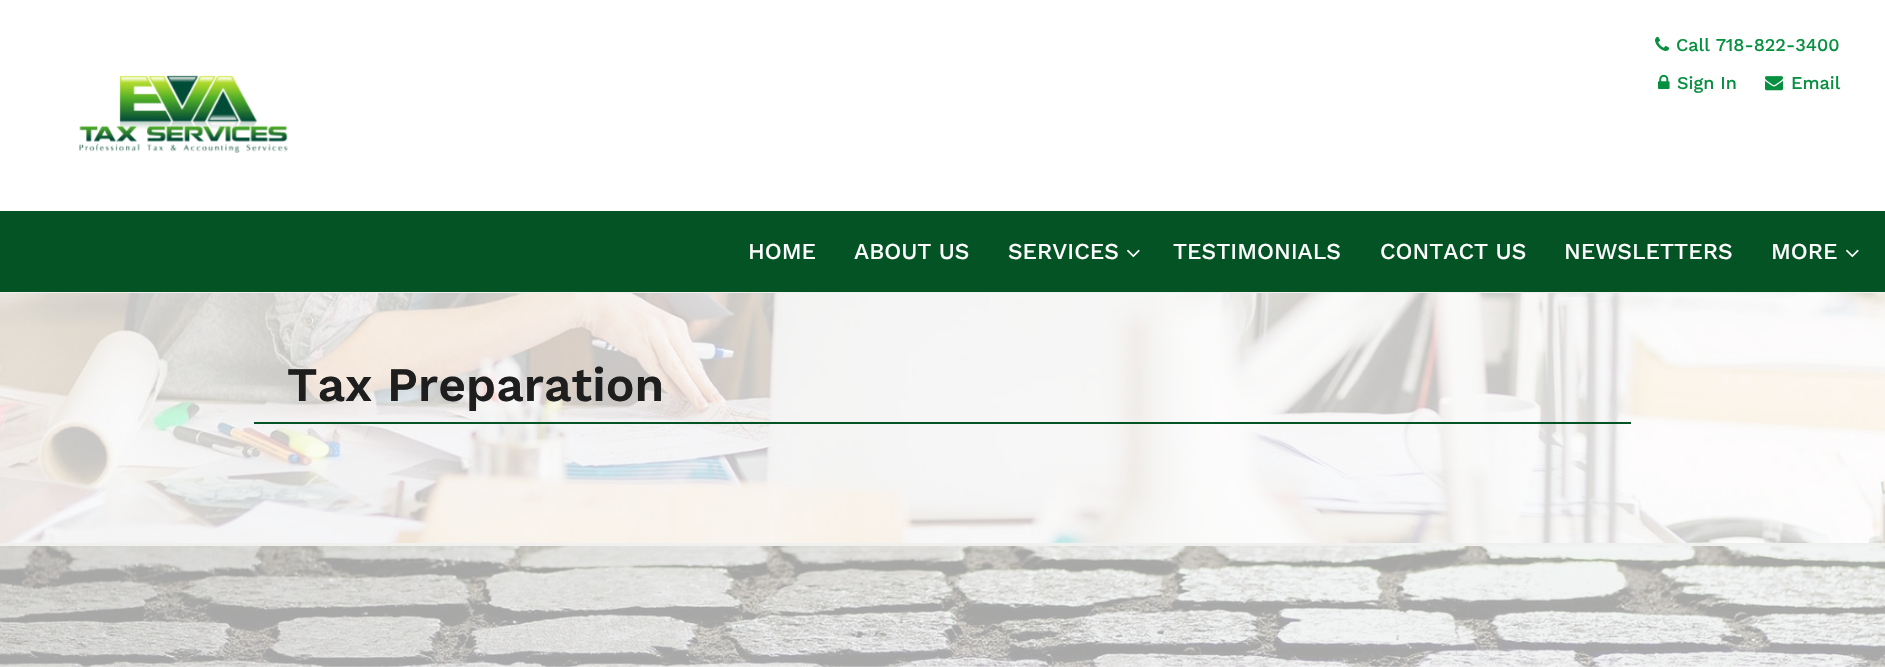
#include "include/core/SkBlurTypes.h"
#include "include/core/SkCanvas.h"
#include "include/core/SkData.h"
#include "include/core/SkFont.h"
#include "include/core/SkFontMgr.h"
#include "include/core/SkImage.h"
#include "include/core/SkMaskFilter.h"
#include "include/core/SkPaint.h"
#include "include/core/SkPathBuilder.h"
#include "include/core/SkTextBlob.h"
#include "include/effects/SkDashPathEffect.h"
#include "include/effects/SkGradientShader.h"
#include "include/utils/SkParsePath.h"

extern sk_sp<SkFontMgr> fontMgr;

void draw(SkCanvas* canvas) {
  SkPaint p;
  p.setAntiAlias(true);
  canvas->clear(SK_ColorWHITE);
  p.setColor(SkColorSetRGB(240, 240, 239));
  canvas->drawRect(SkRect::MakeLTRB(0, 292, 1885, 293), p);
  canvas->drawImageRect(SkImages::DeferredFromEncodedData(SkData::MakeFromFileName("images/1.png")), SkRect::MakeLTRB(1655, 36, 1670, 51), SkSamplingOptions());
  canvas->drawImageRect(SkImages::DeferredFromEncodedData(SkData::MakeFromFileName("images/2.png")), SkRect::MakeLTRB(1658, 74, 1670, 89), SkSamplingOptions());
  canvas->drawImageRect(SkImages::DeferredFromEncodedData(SkData::MakeFromFileName("images/3.png")), SkRect::MakeLTRB(1765, 76, 1783, 91), SkSamplingOptions());
  canvas->drawImageRect(SkImages::DeferredFromEncodedData(SkData::MakeFromFileName("images/4.png")), SkRect::MakeLTRB(79, 75, 288, 153), SkSamplingOptions());
  p.setColor(SkColorSetRGB(4, 83, 37));
  canvas->drawRect(SkRect::MakeLTRB(0, 211, 1885, 292), p);
  canvas->drawImageRect(SkImages::DeferredFromEncodedData(SkData::MakeFromFileName("images/5.png")), SkRect::MakeLTRB(1127, 249, 1140, 258), SkSamplingOptions());
  canvas->drawImageRect(SkImages::DeferredFromEncodedData(SkData::MakeFromFileName("images/5.png")), SkRect::MakeLTRB(1846, 249, 1859, 258), SkSamplingOptions());
  p.setColor(SkColorSetRGB(240, 240, 239));
  canvas->drawRect(SkRect::MakeLTRB(0, 543, 1885, 546), p);
  canvas->drawImageRect(SkImages::DeferredFromEncodedData(SkData::MakeFromFileName("images/6.png")), SkRect::MakeLTRB(0, 293, 1885, 543), SkSamplingOptions());
  p.setColor(SkColorSetRGB(4, 83, 37));
  canvas->drawRect(SkRect::MakeLTRB(254, 422, 1631, 424), p);
  canvas->drawImageRect(SkImages::DeferredFromEncodedData(SkData::MakeFromFileName("images/7.png")), SkRect::MakeLTRB(0, 546, 1885, 667), SkSamplingOptions());
  SkFont font1(fontMgr->matchFamilyStyle("Work Sans", SkFontStyle(500, SkFontStyle::kNormal_Width, SkFontStyle::kUpright_Slant)), 18);
  font1.setSubpixel(true);
  p.setColor(SkColorSetRGB(6, 144, 64));
  canvas->drawString("Call 718-822-3400", 1676, 51, font1, p);
  canvas->drawString("Sign In", 1677, 89, font1, p);
  canvas->drawString("Email", 1791, 89, font1, p);
  SkFont font2(fontMgr->matchFamilyStyle("Work Sans", SkFontStyle(500, SkFontStyle::kNormal_Width, SkFontStyle::kUpright_Slant)), 22.75f);
  font2.setSubpixel(true);
  p.setColor(SkColorSetRGB(254, 254, 254));
  canvas->drawString("HOME", 748, 259, font2, p);
  canvas->drawString("ABOUT US", 854, 259, font2, p);
  canvas->drawString("SERVICES", 1008, 259, font2, p);
  canvas->drawString("TESTIMONIALS", 1173, 259, font2, p);
  canvas->drawString("CONTACT US", 1380, 259, font2, p);
  canvas->drawString("NEWSLETTERS", 1564, 259, font2, p);
  canvas->drawString("MORE", 1771, 259, font2, p);
  SkFont font3(fontMgr->matchFamilyStyle("Work Sans", SkFontStyle(600, SkFontStyle::kNormal_Width, SkFontStyle::kUpright_Slant)), 48);
  font3.setSubpixel(true);
  p.setColor(SkColorSetRGB(29, 30, 29));
  canvas->drawString("Tax Preparation", 287, 401, font3, p);
}
